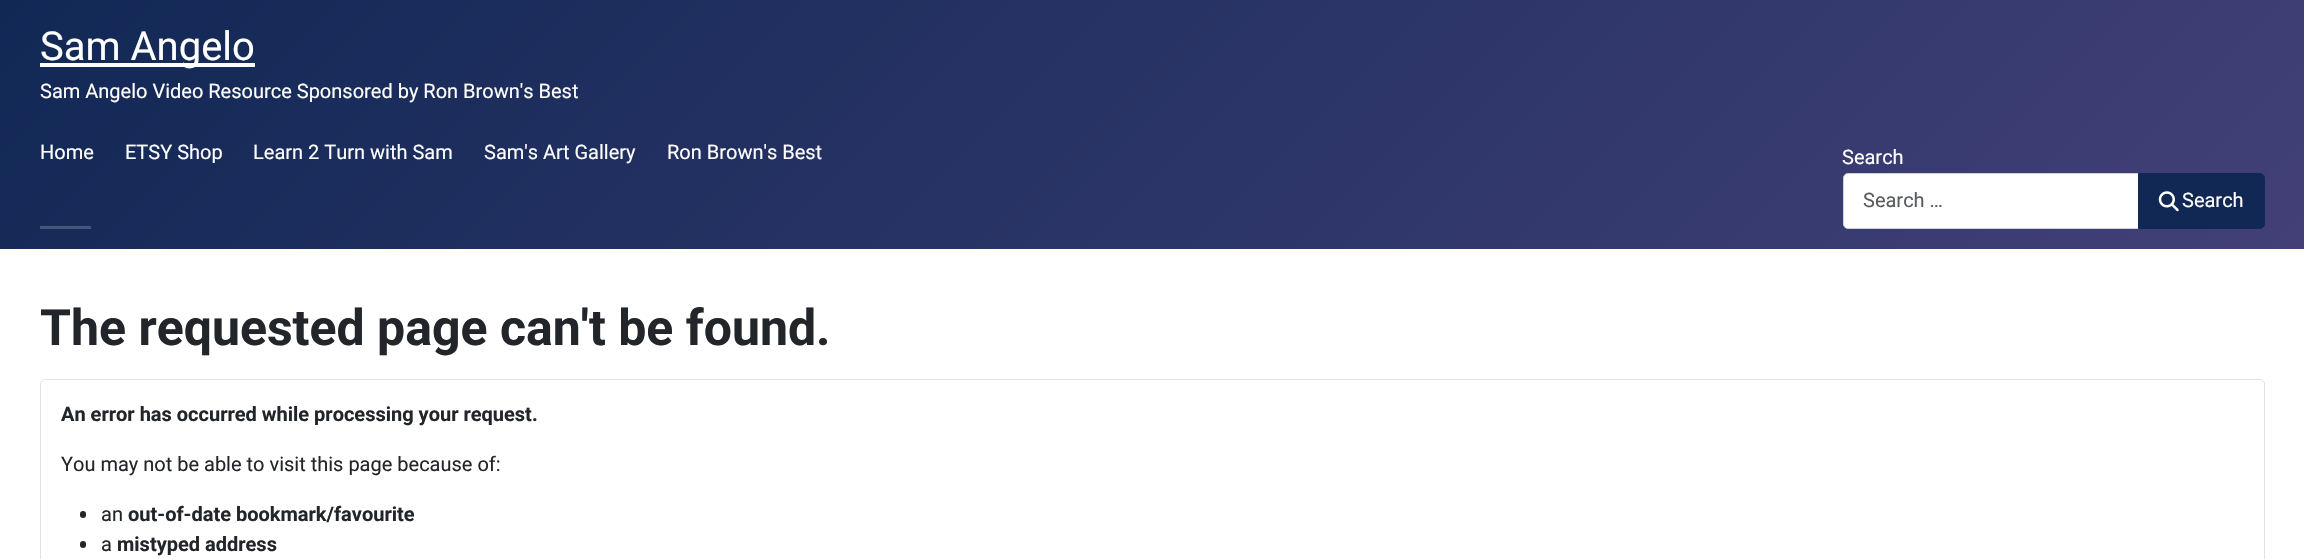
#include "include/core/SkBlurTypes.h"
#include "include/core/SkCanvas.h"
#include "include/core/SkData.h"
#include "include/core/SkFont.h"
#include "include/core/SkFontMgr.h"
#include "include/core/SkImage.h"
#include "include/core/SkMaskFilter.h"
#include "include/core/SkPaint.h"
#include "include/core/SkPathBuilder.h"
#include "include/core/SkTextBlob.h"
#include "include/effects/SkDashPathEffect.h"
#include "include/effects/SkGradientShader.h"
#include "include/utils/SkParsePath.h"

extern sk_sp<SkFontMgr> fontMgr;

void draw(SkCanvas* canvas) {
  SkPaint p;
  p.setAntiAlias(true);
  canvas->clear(SK_ColorWHITE);
  {
    const SkColor colors[] = {SkColorSetRGB(17, 40, 85), SkColorSetRGB(66, 64, 119)};
    const float stops[] = {0, 1};
    const SkPoint ends[] = {{514, -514}, {1791, 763}};
    p.setShader(SkGradientShader::MakeLinear(ends, colors, stops, 2, SkTileMode::kClamp));
    p.setAlpha(255);
  }
  canvas->drawRect(SkRect::MakeLTRB(0, 0, 2304, 249), p);
  p.setShader(nullptr);
  p.setColor(SK_ColorWHITE);
  canvas->drawRect(SkRect::MakeLTRB(40, 63, 255, 67), p);
  p.setColor(SkColorSetRGB(69, 85, 122));
  canvas->drawRect(SkRect::MakeLTRB(40, 226, 91, 229), p);
  p.setColor(SK_ColorWHITE);
  canvas->drawPath(SkPathBuilder().moveTo(1848, 173.5f).lineTo(2138.5f, 173.5f).lineTo(2138.5f, 228.5f).lineTo(1848, 228.5f).cubicTo(1845.5f, 228.5f, 1843.5f, 226.5f, 1843.5f, 224).lineTo(1843.5f, 178).cubicTo(1843.5f, 175.5f, 1845.5f, 173.5f, 1848, 173.5f).close().detach(), p);
  p.setStyle(SkPaint::kStroke_Style);
  p.setStrokeWidth(1);
  p.setColor(SkColorSetRGB(206, 212, 218));
  canvas->drawPath(SkPathBuilder().moveTo(1848, 173.5f).lineTo(2138.5f, 173.5f).lineTo(2138.5f, 228.5f).lineTo(1848, 228.5f).cubicTo(1845.5f, 228.5f, 1843.5f, 226.5f, 1843.5f, 224).lineTo(1843.5f, 178).cubicTo(1843.5f, 175.5f, 1845.5f, 173.5f, 1848, 173.5f).close().detach(), p);
  p.setStyle(SkPaint::kFill_Style);
  p.setColor(SkColorSetRGB(17, 40, 85));
  canvas->drawPath(SkPathBuilder().moveTo(2138.5f, 173.5f).lineTo(2260, 173.5f).cubicTo(2262.5f, 173.5f, 2264.5f, 175.5f, 2264.5f, 178).lineTo(2264.5f, 224).cubicTo(2264.5f, 226.5f, 2262.5f, 228.5f, 2260, 228.5f).lineTo(2138.5f, 228.5f).close().detach(), p);
  p.setStyle(SkPaint::kStroke_Style);
  canvas->drawPath(SkPathBuilder().moveTo(2138.5f, 173.5f).lineTo(2260, 173.5f).cubicTo(2262.5f, 173.5f, 2264.5f, 175.5f, 2264.5f, 178).lineTo(2264.5f, 224).cubicTo(2264.5f, 226.5f, 2262.5f, 228.5f, 2260, 228.5f).lineTo(2138.5f, 228.5f).close().detach(), p);
  canvas->drawImageRect(SkImages::DeferredFromEncodedData(SkData::MakeFromFileName("images/1.png")), SkRect::MakeLTRB(2158, 191, 2179, 212), SkSamplingOptions());
  p.setColor(SkColorSetRGB(223, 227, 231));
  canvas->drawRoundRect(SkRect::MakeLTRB(40.5f, 379.5f, 2264.5f, 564.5f), 4.5f, 4.5f, p);
  p.setStyle(SkPaint::kFill_Style);
  p.setColor(SkColorSetRGB(34, 38, 42));
  canvas->drawRoundRect(SkRect::MakeLTRB(80, 511, 86, 518), 3, 3, p);
  canvas->drawRoundRect(SkRect::MakeLTRB(80, 541, 86, 548), 3, 3, p);
  SkFont font1(fontMgr->matchFamilyStyle("Roboto", SkFontStyle::Normal()), 40);
  font1.setSubpixel(true);
  p.setColor(SK_ColorWHITE);
  canvas->drawString("Sam Angelo", 40, 60, font1, p);
  SkFont font2(fontMgr->matchFamilyStyle("Roboto", SkFontStyle::Normal()), 20);
  font2.setSubpixel(true);
  canvas->drawString("Sam Angelo Video Resource Sponsored by Ron Brown's Best", 40, 98, font2, p);
  canvas->drawString("Home", 40, 159, font2, p);
  canvas->drawString("ETSY Shop", 125, 159, font2, p);
  canvas->drawString("Learn 2 Turn with Sam", 253, 159, font2, p);
  canvas->drawString("Sam's Art Gallery", 484, 159, font2, p);
  canvas->drawString("Ron Brown's Best", 667, 159, font2, p);
  canvas->drawString("Search", 1842, 164, font2, p);
  p.setColor(SkColorSetRGB(89, 92, 95));
  canvas->drawString("Search …", 1863, 207, font2, p);
  p.setColor(SK_ColorWHITE);
  canvas->drawString("Search", 2182, 207, font2, p);
  SkFont font3(fontMgr->matchFamilyStyle("Roboto", SkFontStyle::Bold()), 50);
  font3.setSubpixel(true);
  p.setColor(SkColorSetRGB(34, 38, 42));
  canvas->drawString("The requested page can't be found.", 40, 345, font3, p);
  SkFont font4(fontMgr->matchFamilyStyle("Roboto", SkFontStyle::Bold()), 20);
  font4.setSubpixel(true);
  canvas->drawString("An error has occurred while processing your request.", 61, 421, font4, p);
  canvas->drawString("You may not be able to visit this page because of:", 61, 471, font2, p);
  canvas->drawString("an", 101, 521, font2, p);
  canvas->drawString("out-of-date bookmark/favourite", 128, 521, font4, p);
  canvas->drawString("a", 101, 551, font2, p);
  canvas->drawString("mistyped address", 117, 551, font4, p);
}
